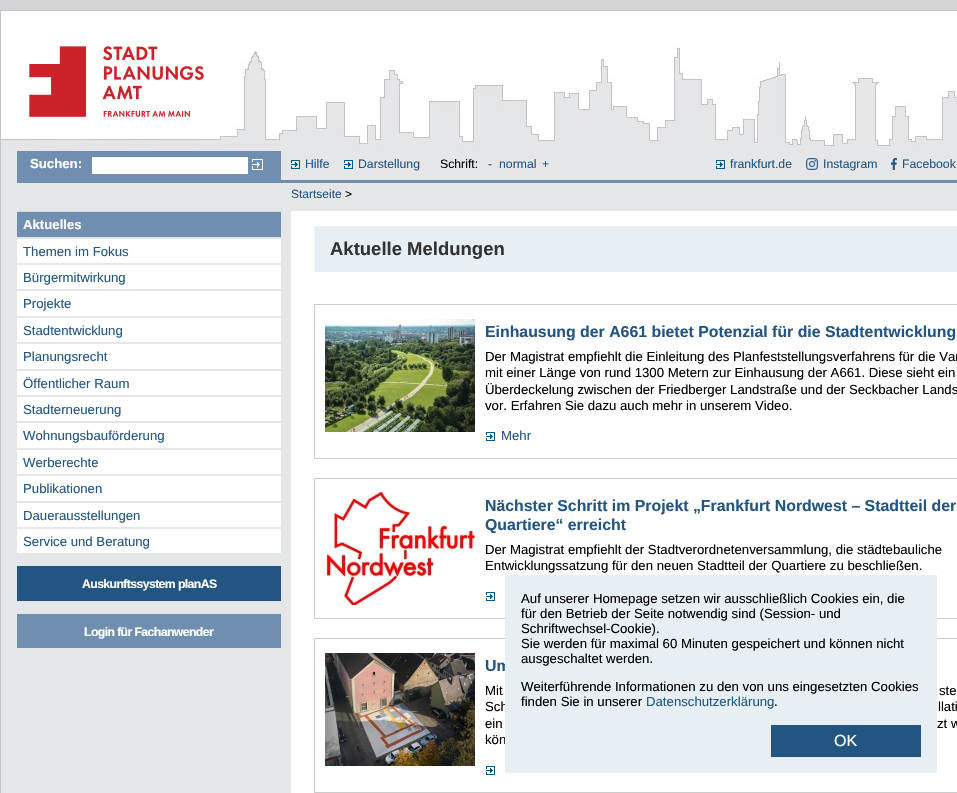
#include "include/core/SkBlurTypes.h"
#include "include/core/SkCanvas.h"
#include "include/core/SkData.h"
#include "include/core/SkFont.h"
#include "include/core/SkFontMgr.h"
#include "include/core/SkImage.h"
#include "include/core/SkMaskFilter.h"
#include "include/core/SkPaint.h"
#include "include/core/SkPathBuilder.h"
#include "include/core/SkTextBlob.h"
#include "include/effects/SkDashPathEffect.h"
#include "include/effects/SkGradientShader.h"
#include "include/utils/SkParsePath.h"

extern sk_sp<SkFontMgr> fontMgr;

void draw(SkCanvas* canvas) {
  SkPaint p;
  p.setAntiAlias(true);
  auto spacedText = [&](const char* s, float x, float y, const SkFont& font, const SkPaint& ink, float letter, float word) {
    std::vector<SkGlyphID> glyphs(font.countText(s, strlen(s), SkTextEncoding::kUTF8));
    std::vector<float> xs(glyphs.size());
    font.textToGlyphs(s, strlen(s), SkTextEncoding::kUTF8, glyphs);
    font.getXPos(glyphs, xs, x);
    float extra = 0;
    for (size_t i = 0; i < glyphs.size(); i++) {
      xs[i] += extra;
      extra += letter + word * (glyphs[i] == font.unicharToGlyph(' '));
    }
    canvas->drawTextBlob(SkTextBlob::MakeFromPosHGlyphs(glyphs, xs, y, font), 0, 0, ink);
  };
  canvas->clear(SkColorSetRGB(211, 214, 217));
  p.setColor(SkColorSetRGB(228, 230, 232));
  canvas->drawRect(SkRect::MakeLTRB(1, 147, 957, 793), p);
  p.setStyle(SkPaint::kStroke_Style);
  p.setStrokeWidth(1);
  p.setColor(SkColorSetRGB(196, 196, 198));
  canvas->drawRect(SkRect::MakeLTRB(0.5f, 10.5f, 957.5f, 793.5f), p);
  canvas->drawImageRect(SkImages::DeferredFromEncodedData(SkData::MakeFromFileName("images/1.png")), SkRect::MakeLTRB(1, 11, 957, 147), SkSamplingOptions());
  p.setStyle(SkPaint::kFill_Style);
  p.setColor(SkColorSetRGB(112, 142, 175));
  canvas->drawRect(SkRect::MakeLTRB(17, 180, 957, 183), p);
  canvas->drawRect(SkRect::MakeLTRB(17, 151, 281, 180), p);
  p.setColor(SK_ColorWHITE);
  canvas->drawRect(SkRect::MakeLTRB(92, 157, 248, 174), p);
  canvas->drawImageRect(SkImages::DeferredFromEncodedData(SkData::MakeFromFileName("images/2.png")), SkRect::MakeLTRB(252, 159, 263, 170), SkSamplingOptions());
  canvas->drawImageRect(SkImages::DeferredFromEncodedData(SkData::MakeFromFileName("images/3.png")), SkRect::MakeLTRB(291, 160, 300, 169), SkSamplingOptions());
  canvas->drawImageRect(SkImages::DeferredFromEncodedData(SkData::MakeFromFileName("images/3.png")), SkRect::MakeLTRB(344, 160, 353, 169), SkSamplingOptions());
  canvas->drawImageRect(SkImages::DeferredFromEncodedData(SkData::MakeFromFileName("images/3.png")), SkRect::MakeLTRB(716, 160, 725, 169), SkSamplingOptions());
  canvas->drawImageRect(SkImages::DeferredFromEncodedData(SkData::MakeFromFileName("images/4.png")), SkRect::MakeLTRB(806, 158, 818, 170), SkSamplingOptions());
  canvas->drawImageRect(SkImages::DeferredFromEncodedData(SkData::MakeFromFileName("images/5.png")), SkRect::MakeLTRB(891, 158, 897, 170), SkSamplingOptions());
  p.setColor(SkColorSetRGB(211, 214, 217));
  canvas->drawRect(SkRect::MakeLTRB(17, 211, 281, 212), p);
  p.setColor(SkColorSetRGB(112, 142, 175));
  canvas->drawRect(SkRect::MakeLTRB(17, 212, 281, 237), p);
  p.setColor(SK_ColorWHITE);
  canvas->drawRect(SkRect::MakeLTRB(17, 239, 281, 263), p);
  canvas->drawRect(SkRect::MakeLTRB(17, 265, 281, 289), p);
  canvas->drawRect(SkRect::MakeLTRB(17, 291, 281, 316), p);
  canvas->drawRect(SkRect::MakeLTRB(17, 318, 281, 342), p);
  canvas->drawRect(SkRect::MakeLTRB(17, 344, 281, 369), p);
  canvas->drawRect(SkRect::MakeLTRB(17, 371, 281, 395), p);
  canvas->drawRect(SkRect::MakeLTRB(17, 397, 281, 421), p);
  canvas->drawRect(SkRect::MakeLTRB(17, 423, 281, 448), p);
  canvas->drawRect(SkRect::MakeLTRB(17, 450, 281, 474), p);
  canvas->drawRect(SkRect::MakeLTRB(17, 476, 281, 501), p);
  canvas->drawRect(SkRect::MakeLTRB(17, 503, 281, 527), p);
  canvas->drawRect(SkRect::MakeLTRB(17, 529, 281, 553), p);
  p.setColor(SkColorSetRGB(34, 85, 130));
  canvas->drawRect(SkRect::MakeLTRB(17, 566, 281, 601), p);
  p.setColor(SkColorSetRGB(112, 142, 175));
  canvas->drawRect(SkRect::MakeLTRB(17, 614, 281, 648), p);
  p.setColor(SK_ColorWHITE);
  canvas->drawRect(SkRect::MakeLTRB(291, 211, 957, 793), p);
  p.setColor(SkColorSetRGB(231, 238, 244));
  canvas->drawRect(SkRect::MakeLTRB(314, 226, 957, 272), p);
  p.setStyle(SkPaint::kStroke_Style);
  p.setColor(SkColorSetRGB(204, 204, 204));
  canvas->drawRect(SkRect::MakeLTRB(314.5f, 304.5f, 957.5f, 458.5f), p);
  canvas->drawImageRect(SkImages::DeferredFromEncodedData(SkData::MakeFromFileName("images/6.png")), SkRect::MakeLTRB(325, 319, 475, 432), SkSamplingOptions());
  canvas->drawImageRect(SkImages::DeferredFromEncodedData(SkData::MakeFromFileName("images/7.png")), SkRect::MakeLTRB(486, 432, 495, 441), SkSamplingOptions());
  canvas->drawRect(SkRect::MakeLTRB(314.5f, 478.5f, 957.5f, 618.5f), p);
  canvas->drawImageRect(SkImages::DeferredFromEncodedData(SkData::MakeFromFileName("images/8.png")), SkRect::MakeLTRB(326, 492, 475, 605), SkSamplingOptions());
  canvas->drawImageRect(SkImages::DeferredFromEncodedData(SkData::MakeFromFileName("images/7.png")), SkRect::MakeLTRB(486, 592, 495, 601), SkSamplingOptions());
  canvas->drawRect(SkRect::MakeLTRB(314.5f, 638.5f, 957.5f, 792.5f), p);
  canvas->drawImageRect(SkImages::DeferredFromEncodedData(SkData::MakeFromFileName("images/9.png")), SkRect::MakeLTRB(325, 653, 475, 766), SkSamplingOptions());
  canvas->drawImageRect(SkImages::DeferredFromEncodedData(SkData::MakeFromFileName("images/7.png")), SkRect::MakeLTRB(486, 766, 495, 775), SkSamplingOptions());
  SkFont font1(fontMgr->matchFamilyStyle("Liberation Sans", SkFontStyle::Bold()), 13.2f);
  font1.setSubpixel(true);
  p.setStyle(SkPaint::kFill_Style);
  p.setColor(SK_ColorWHITE);
  canvas->drawString("Suchen:", 30, 168, font1, p);
  SkFont font2(fontMgr->matchFamilyStyle("Liberation Sans", SkFontStyle::Normal()), 12.25f);
  font2.setSubpixel(true);
  p.setColor(SkColorSetRGB(34, 85, 130));
  canvas->drawString("Hilfe", 305, 168, font2, p);
  canvas->drawString("Darstellung", 358, 168, font2, p);
  p.setColor(SK_ColorBLACK);
  canvas->drawString("Schrift:", 440, 168, font2, p);
  p.setColor(SkColorSetRGB(34, 85, 130));
  canvas->drawString("-", 488, 168, font2, p);
  canvas->drawString("normal", 499, 168, font2, p);
  canvas->drawString("+", 542, 168, font2, p);
  canvas->drawString("frankfurt.de", 730, 168, font2, p);
  canvas->drawString("Instagram", 823, 168, font2, p);
  canvas->drawString("Facebook", 902, 168, font2, p);
  SkFont font3(fontMgr->matchFamilyStyle("Liberation Sans", SkFontStyle::Normal()), 12);
  font3.setSubpixel(true);
  canvas->drawString("Startseite", 291, 198, font3, p);
  p.setColor(SK_ColorBLACK);
  canvas->drawString(">", 345, 198, font3, p);
  p.setColor(SK_ColorWHITE);
  canvas->drawString("Aktuelles", 23, 229, font1, p);
  SkFont font4(fontMgr->matchFamilyStyle("Liberation Sans", SkFontStyle::Normal()), 13.2f);
  font4.setSubpixel(true);
  p.setColor(SkColorSetRGB(34, 85, 130));
  canvas->drawString("Themen im Fokus", 23, 256, font4, p);
  canvas->drawString("Bürgermitwirkung", 23, 282, font4, p);
  canvas->drawString("Projekte", 23, 308, font4, p);
  canvas->drawString("Stadtentwicklung", 23, 335, font4, p);
  canvas->drawString("Planungsrecht", 23, 361, font4, p);
  canvas->drawString("Öffentlicher Raum", 23, 388, font4, p);
  canvas->drawString("Stadterneuerung", 23, 414, font4, p);
  canvas->drawString("Wohnungsbauförderung", 23, 440, font4, p);
  canvas->drawString("Werberechte", 23, 467, font4, p);
  canvas->drawString("Publikationen", 23, 493, font4, p);
  canvas->drawString("Dauerausstellungen", 23, 520, font4, p);
  canvas->drawString("Service und Beratung", 23, 546, font4, p);
  SkFont font5(fontMgr->matchFamilyStyle("Liberation Sans", SkFontStyle::Bold()), 12.25f);
  font5.setSubpixel(true);
  p.setColor(SK_ColorWHITE);
  spacedText("Auskunftssystem planAS", 82, 588, font5, p, -0.6f, 0);
  spacedText("Login für Fachanwender", 84, 636, font5, p, -0.6f, 0);
  SkFont font6(fontMgr->matchFamilyStyle("Liberation Sans", SkFontStyle::Bold()), 18.5f);
  font6.setSubpixel(true);
  p.setColor(SkColorSetRGB(51, 51, 51));
  canvas->drawString("Aktuelle Meldungen", 330, 255, font6, p);
  SkFont font7(fontMgr->matchFamilyStyle("Liberation Sans", SkFontStyle::Bold()), 15.85f);
  font7.setSubpixel(true);
  p.setColor(SkColorSetRGB(34, 85, 130));
  canvas->drawString("Einhausung der A661 bietet Potenzial für die Stadtentwicklung", 485, 337, font7, p);
  p.setColor(SK_ColorBLACK);
  canvas->drawString("Der Magistrat empfiehlt die Einleitung des Planfeststellungsverfahrens für die Var", 485, 361, font4, p);
  canvas->drawString("mit einer Länge von rund 1300 Metern zur Einhausung der A661. Diese sieht ein", 485, 377, font4, p);
  canvas->drawString("Überdeckelung zwischen der Friedberger Landstraße und der Seckbacher Lands", 485, 394, font4, p);
  canvas->drawString("vor. Erfahren Sie dazu auch mehr in unserem Video.", 485, 410, font4, p);
  p.setColor(SkColorSetRGB(34, 85, 130));
  canvas->drawString("Mehr", 501, 440, font4, p);
  canvas->drawString("Nächster Schritt im Projekt „Frankfurt Nordwest – Stadtteil der", 485, 511, font7, p);
  canvas->drawString("Quartiere“ erreicht", 485, 530, font7, p);
  p.setColor(SK_ColorBLACK);
  canvas->drawString("Der Magistrat empfiehlt der Stadtverordnetenversammlung, die städtebauliche", 485, 554, font4, p);
  canvas->drawString("Entwicklungssatzung für den neuen Stadtteil der Quartiere zu beschließen.", 485, 570, font4, p);
  p.setColor(SkColorSetRGB(34, 85, 130));
  canvas->drawString("Um", 485, 671, font7, p);
  p.setColor(SK_ColorBLACK);
  canvas->drawString("Mit", 485, 695, font4, p);
  canvas->drawString("ste", 939, 695, font4, p);
  canvas->drawString("Sch", 485, 711, font4, p);
  canvas->drawString("llati", 938, 711, font4, p);
  canvas->drawString("ein", 485, 728, font4, p);
  canvas->drawString("zt w", 937, 728, font4, p);
  canvas->drawString("kön", 485, 744, font4, p);
  p.setColor(SkColorSetRGB(231, 238, 244));
  canvas->drawRect(SkRect::MakeLTRB(505, 575, 937, 773), p);
  p.setColor(SK_ColorBLACK);
  canvas->drawString("Auf unserer Homepage setzen wir ausschließlich Cookies ein, die", 521, 603, font4, p);
  canvas->drawString("für den Betrieb der Seite notwendig sind (Session- und", 521, 618, font4, p);
  canvas->drawString("Schriftwechsel-Cookie).", 521, 633, font4, p);
  canvas->drawString("Sie werden für maximal 60 Minuten gespeichert und können nicht", 521, 648, font4, p);
  canvas->drawString("ausgeschaltet werden.", 521, 663, font4, p);
  canvas->drawString("Weiterführende Informationen zu den von uns eingesetzten Cookies", 521, 691, font4, p);
  canvas->drawString("finden Sie in unserer", 521, 706, font4, p);
  p.setColor(SkColorSetRGB(34, 85, 130));
  canvas->drawString("Datenschutzerklärung", 646, 706, font4, p);
  p.setColor(SK_ColorBLACK);
  canvas->drawString(".", 774, 706, font4, p);
  p.setColor(SkColorSetRGB(34, 85, 130));
  canvas->drawRect(SkRect::MakeLTRB(771, 725, 921, 757), p);
  SkFont font8(fontMgr->matchFamilyStyle("Liberation Sans", SkFontStyle::Normal()), 16);
  font8.setSubpixel(true);
  p.setColor(SK_ColorWHITE);
  canvas->drawString("OK", 834, 746, font8, p);
}
